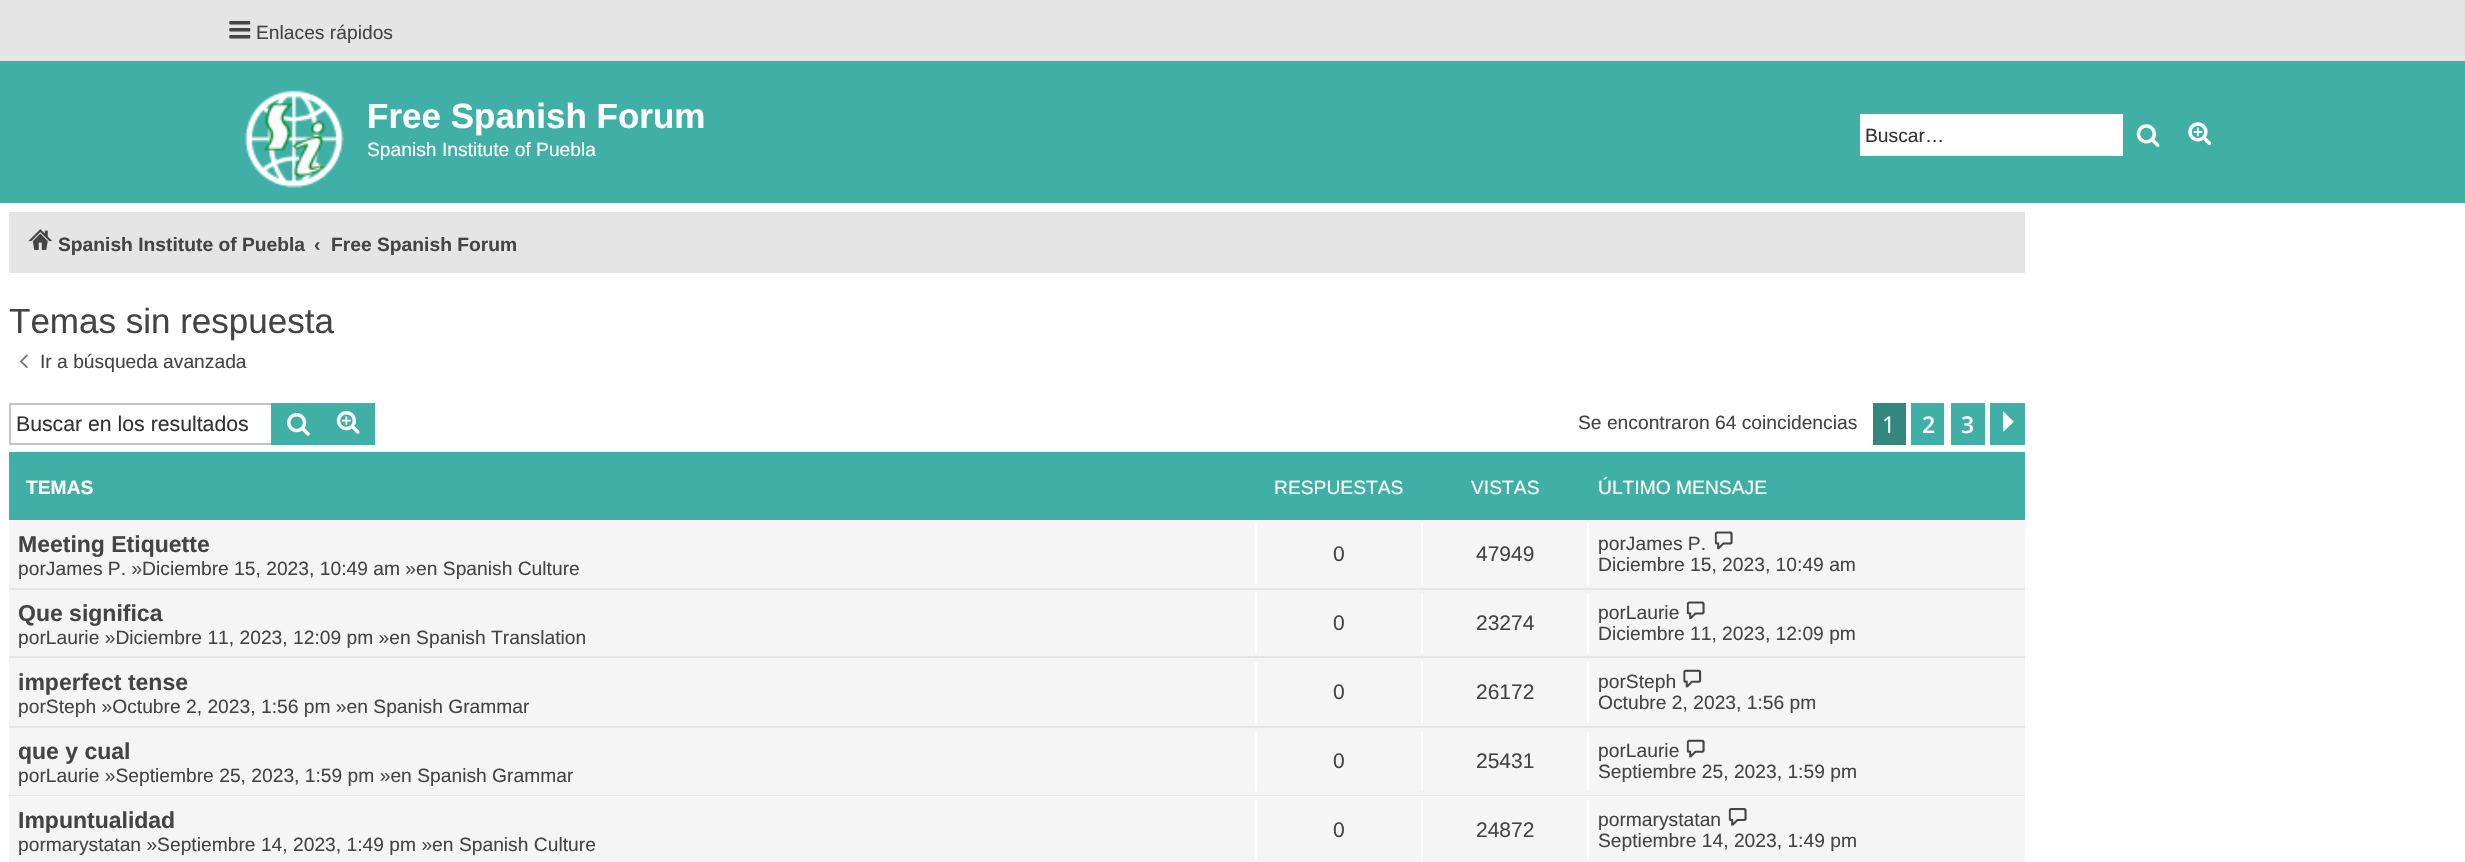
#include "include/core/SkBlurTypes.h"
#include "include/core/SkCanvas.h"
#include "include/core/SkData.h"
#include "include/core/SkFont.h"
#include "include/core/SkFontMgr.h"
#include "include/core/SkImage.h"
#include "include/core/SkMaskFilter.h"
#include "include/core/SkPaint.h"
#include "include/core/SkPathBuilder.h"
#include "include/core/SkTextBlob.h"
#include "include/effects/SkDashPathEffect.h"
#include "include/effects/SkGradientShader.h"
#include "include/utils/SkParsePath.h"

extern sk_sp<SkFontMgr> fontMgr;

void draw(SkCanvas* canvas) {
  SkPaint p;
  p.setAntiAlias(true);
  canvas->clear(SK_ColorWHITE);
  p.setColor(SkColorSetRGB(229, 229, 229));
  canvas->drawRect(SkRect::MakeLTRB(0, 0, 2465, 61), p);
  canvas->drawImageRect(SkImages::DeferredFromEncodedData(SkData::MakeFromFileName("images/1.png")), SkRect::MakeLTRB(229, 21, 251, 39), SkSamplingOptions());
  p.setColor(SkColorSetRGB(64, 176, 166));
  canvas->drawRect(SkRect::MakeLTRB(0, 61, 2465, 203), p);
  canvas->drawImageRect(SkImages::DeferredFromEncodedData(SkData::MakeFromFileName("images/2.png")), SkRect::MakeLTRB(244, 90, 344, 188), SkSamplingOptions());
  p.setColor(SK_ColorWHITE);
  canvas->drawRect(SkRect::MakeLTRB(1860, 114, 2123, 156), p);
  canvas->drawImageRect(SkImages::DeferredFromEncodedData(SkData::MakeFromFileName("images/3.png")), SkRect::MakeLTRB(2136, 124, 2160, 147), SkSamplingOptions());
  canvas->drawImageRect(SkImages::DeferredFromEncodedData(SkData::MakeFromFileName("images/4.png")), SkRect::MakeLTRB(2188, 122, 2211, 145), SkSamplingOptions());
  p.setColor(SkColorSetRGB(229, 229, 229));
  canvas->drawRect(SkRect::MakeLTRB(9, 212, 2025, 273), p);
  canvas->drawImageRect(SkImages::DeferredFromEncodedData(SkData::MakeFromFileName("images/5.png")), SkRect::MakeLTRB(28, 229, 52, 250), SkSamplingOptions());
  canvas->drawImageRect(SkImages::DeferredFromEncodedData(SkData::MakeFromFileName("images/6.png")), SkRect::MakeLTRB(19, 354, 28, 369), SkSamplingOptions());
  p.setColor(SkColorSetRGB(199, 195, 191));
  canvas->drawRect(SkRect::MakeLTRB(9, 403, 271, 405), p);
  canvas->drawRect(SkRect::MakeLTRB(9, 443, 271, 445), p);
  canvas->drawRect(SkRect::MakeLTRB(9, 403, 11, 445), p);
  p.setColor(SkColorSetRGB(64, 176, 166));
  canvas->drawRect(SkRect::MakeLTRB(271, 403, 324, 445), p);
  canvas->drawImageRect(SkImages::DeferredFromEncodedData(SkData::MakeFromFileName("images/7.png")), SkRect::MakeLTRB(287, 413, 310, 436), SkSamplingOptions());
  canvas->drawRect(SkRect::MakeLTRB(324, 405, 373, 443), p);
  canvas->drawRect(SkRect::MakeLTRB(324, 403, 375, 405), p);
  canvas->drawRect(SkRect::MakeLTRB(373, 403, 375, 445), p);
  canvas->drawRect(SkRect::MakeLTRB(324, 443, 375, 445), p);
  canvas->drawImageRect(SkImages::DeferredFromEncodedData(SkData::MakeFromFileName("images/8.png")), SkRect::MakeLTRB(336, 411, 360, 434), SkSamplingOptions());
  p.setColor(SkColorSetRGB(51, 135, 127));
  canvas->drawRect(SkRect::MakeLTRB(1873, 403, 1906, 445), p);
  p.setColor(SkColorSetRGB(64, 176, 166));
  canvas->drawRect(SkRect::MakeLTRB(1911, 403, 1944, 445), p);
  canvas->drawRect(SkRect::MakeLTRB(1951, 403, 1985, 445), p);
  canvas->drawRect(SkRect::MakeLTRB(1990, 403, 2025, 445), p);
  p.setColor(SK_ColorWHITE);
  canvas->drawPath(SkPathBuilder().moveTo(2013.5f, 422).lineTo(2003, 432).lineTo(2003, 411).lineTo(2011.5f, 419.5f).cubicTo(2012, 420, 2014, 421, 2013.5f, 422).close().detach(), p);
  p.setColor(SkColorSetRGB(64, 176, 166));
  canvas->drawRect(SkRect::MakeLTRB(9, 452, 2025, 520), p);
  p.setColor(SkColorSetRGB(245, 245, 245));
  canvas->drawRect(SkRect::MakeLTRB(9, 520, 2025, 588), p);
  p.setColor(SkColorSetRGB(229, 229, 229));
  canvas->drawRect(SkRect::MakeLTRB(9, 588, 2025, 590), p);
  p.setColor(SK_ColorWHITE);
  canvas->drawRect(SkRect::MakeLTRB(1255, 523, 1257, 585), p);
  canvas->drawRect(SkRect::MakeLTRB(1421, 523, 1423, 585), p);
  canvas->drawRect(SkRect::MakeLTRB(1587, 523, 1589, 585), p);
  canvas->drawImageRect(SkImages::DeferredFromEncodedData(SkData::MakeFromFileName("images/9.png")), SkRect::MakeLTRB(1714, 531, 1733, 550), SkSamplingOptions());
  p.setColor(SkColorSetRGB(245, 245, 245));
  canvas->drawRect(SkRect::MakeLTRB(9, 590, 2025, 656), p);
  p.setColor(SkColorSetRGB(229, 229, 229));
  canvas->drawRect(SkRect::MakeLTRB(9, 656, 2025, 658), p);
  p.setColor(SK_ColorWHITE);
  canvas->drawRect(SkRect::MakeLTRB(1255, 593, 1257, 653), p);
  canvas->drawRect(SkRect::MakeLTRB(1421, 593, 1423, 653), p);
  canvas->drawRect(SkRect::MakeLTRB(1587, 593, 1589, 653), p);
  canvas->drawImageRect(SkImages::DeferredFromEncodedData(SkData::MakeFromFileName("images/9.png")), SkRect::MakeLTRB(1686, 601, 1705, 620), SkSamplingOptions());
  p.setColor(SkColorSetRGB(245, 245, 245));
  canvas->drawRect(SkRect::MakeLTRB(9, 658, 2025, 726), p);
  p.setColor(SkColorSetRGB(229, 229, 229));
  canvas->drawRect(SkRect::MakeLTRB(9, 726, 2025, 728), p);
  p.setColor(SK_ColorWHITE);
  canvas->drawRect(SkRect::MakeLTRB(1255, 662, 1257, 723), p);
  canvas->drawRect(SkRect::MakeLTRB(1421, 662, 1423, 723), p);
  canvas->drawRect(SkRect::MakeLTRB(1587, 662, 1589, 723), p);
  canvas->drawImageRect(SkImages::DeferredFromEncodedData(SkData::MakeFromFileName("images/10.png")), SkRect::MakeLTRB(1683, 669, 1702, 688), SkSamplingOptions());
  p.setColor(SkColorSetRGB(245, 245, 245));
  canvas->drawRect(SkRect::MakeLTRB(9, 728, 2025, 795), p);
  p.setColor(SkColorSetRGB(229, 229, 229));
  canvas->drawRect(SkRect::MakeLTRB(9, 795, 2025, 796), p);
  p.setColor(SK_ColorWHITE);
  canvas->drawRect(SkRect::MakeLTRB(1255, 732, 1257, 791), p);
  canvas->drawRect(SkRect::MakeLTRB(1421, 732, 1423, 791), p);
  canvas->drawRect(SkRect::MakeLTRB(1587, 732, 1589, 791), p);
  canvas->drawImageRect(SkImages::DeferredFromEncodedData(SkData::MakeFromFileName("images/11.png")), SkRect::MakeLTRB(1686, 739, 1705, 758), SkSamplingOptions());
  p.setColor(SkColorSetRGB(245, 245, 245));
  canvas->drawRect(SkRect::MakeLTRB(9, 796, 2025, 862), p);
  p.setColor(SK_ColorWHITE);
  canvas->drawRect(SkRect::MakeLTRB(1255, 800, 1257, 859), p);
  canvas->drawRect(SkRect::MakeLTRB(1421, 800, 1423, 859), p);
  canvas->drawRect(SkRect::MakeLTRB(1587, 800, 1589, 859), p);
  canvas->drawImageRect(SkImages::DeferredFromEncodedData(SkData::MakeFromFileName("images/12.png")), SkRect::MakeLTRB(1728, 808, 1747, 826), SkSamplingOptions());
  SkFont font1(fontMgr->matchFamilyStyle("Liberation Sans", SkFontStyle::Normal()), 19.25f);
  font1.setSubpixel(true);
  p.setColor(SkColorSetRGB(68, 68, 68));
  canvas->drawString("Enlaces rápidos", 256, 39, font1, p);
  SkFont font2(fontMgr->matchFamilyStyle("Liberation Sans", SkFontStyle::Bold()), 35);
  font2.setSubpixel(true);
  p.setColor(SK_ColorWHITE);
  canvas->drawString("Free Spanish Forum", 367, 128, font2, p);
  canvas->drawString("Spanish Institute of Puebla", 367, 156, font1, p);
  p.setColor(SkColorSetRGB(51, 51, 51));
  canvas->drawString("Buscar…", 1865, 142, font1, p);
  SkFont font3(fontMgr->matchFamilyStyle("Liberation Sans", SkFontStyle::Bold()), 19.25f);
  font3.setSubpixel(true);
  p.setColor(SkColorSetRGB(68, 68, 68));
  canvas->drawString("Spanish Institute of Puebla", 58, 251, font3, p);
  canvas->drawString("‹", 314, 251, font3, p);
  canvas->drawString("Free Spanish Forum", 331, 251, font3, p);
  SkFont font4(fontMgr->matchFamilyStyle("Liberation Sans", SkFontStyle::Normal()), 35);
  font4.setSubpixel(true);
  canvas->drawString("Temas sin respuesta", 9, 333, font4, p);
  canvas->drawString("Ir a búsqueda avanzada", 40, 368, font1, p);
  SkFont font5(fontMgr->matchFamilyStyle("Liberation Sans", SkFontStyle::Normal()), 21.25f);
  font5.setSubpixel(true);
  p.setColor(SkColorSetRGB(51, 51, 51));
  canvas->drawString("Buscar en los resultados", 16, 431, font5, p);
  p.setColor(SkColorSetRGB(68, 68, 68));
  canvas->drawString("Se encontraron 64 coincidencias", 1578, 429, font1, p);
  SkFont font6(fontMgr->matchFamilyStyle("Open Sans", SkFontStyle::Normal()), 23);
  font6.setSubpixel(true);
  p.setColor(SK_ColorWHITE);
  canvas->drawString("1", 1882, 433, font6, p);
  SkFont font7(fontMgr->matchFamilyStyle("Open Sans", SkFontStyle(600, SkFontStyle::kNormal_Width, SkFontStyle::kUpright_Slant)), 23);
  font7.setSubpixel(true);
  canvas->drawString("2", 1922, 433, font7, p);
  canvas->drawString("3", 1961, 433, font7, p);
  canvas->drawString("TEMAS", 26, 494, font3, p);
  canvas->drawString("RESPUESTAS", 1274, 494, font1, p);
  canvas->drawString("VISTAS", 1471, 494, font1, p);
  canvas->drawString("ÚLTIMO MENSAJE", 1598, 494, font1, p);
  SkFont font8(fontMgr->matchFamilyStyle("Liberation Sans", SkFontStyle::Bold()), 23);
  font8.setSubpixel(true);
  p.setColor(SkColorSetRGB(68, 68, 68));
  canvas->drawString("Meeting Etiquette", 18, 552, font8, p);
  canvas->drawString("porJames P. »Diciembre 15, 2023, 10:49 am »en Spanish Culture", 18, 575, font1, p);
  SkFont font9(fontMgr->matchFamilyStyle("Liberation Sans", SkFontStyle::Normal()), 21);
  font9.setSubpixel(true);
  canvas->drawString("0", 1333, 561, font9, p);
  canvas->drawString("47949", 1476, 561, font9, p);
  canvas->drawString("porJames P.", 1598, 550, font1, p);
  canvas->drawString("Diciembre 15, 2023, 10:49 am", 1598, 571, font1, p);
  canvas->drawString("Que significa", 18, 621, font8, p);
  canvas->drawString("porLaurie »Diciembre 11, 2023, 12:09 pm »en Spanish Translation", 18, 644, font1, p);
  canvas->drawString("0", 1333, 630, font9, p);
  canvas->drawString("23274", 1476, 630, font9, p);
  canvas->drawString("porLaurie", 1598, 619, font1, p);
  canvas->drawString("Diciembre 11, 2023, 12:09 pm", 1598, 640, font1, p);
  canvas->drawString("imperfect tense", 18, 690, font8, p);
  canvas->drawString("porSteph »Octubre 2, 2023, 1:56 pm »en Spanish Grammar", 18, 713, font1, p);
  canvas->drawString("0", 1333, 699, font9, p);
  canvas->drawString("26172", 1476, 699, font9, p);
  canvas->drawString("porSteph", 1598, 688, font1, p);
  canvas->drawString("Octubre 2, 2023, 1:56 pm", 1598, 709, font1, p);
  canvas->drawString("que y cual", 18, 759, font8, p);
  canvas->drawString("porLaurie »Septiembre 25, 2023, 1:59 pm »en Spanish Grammar", 18, 782, font1, p);
  canvas->drawString("0", 1333, 768, font9, p);
  canvas->drawString("25431", 1476, 768, font9, p);
  canvas->drawString("porLaurie", 1598, 757, font1, p);
  canvas->drawString("Septiembre 25, 2023, 1:59 pm", 1598, 778, font1, p);
  canvas->drawString("Impuntualidad", 18, 828, font8, p);
  canvas->drawString("pormarystatan »Septiembre 14, 2023, 1:49 pm »en Spanish Culture", 18, 851, font1, p);
  canvas->drawString("0", 1333, 837, font9, p);
  canvas->drawString("24872", 1476, 837, font9, p);
  canvas->drawString("pormarystatan", 1598, 826, font1, p);
  canvas->drawString("Septiembre 14, 2023, 1:49 pm", 1598, 847, font1, p);
}
